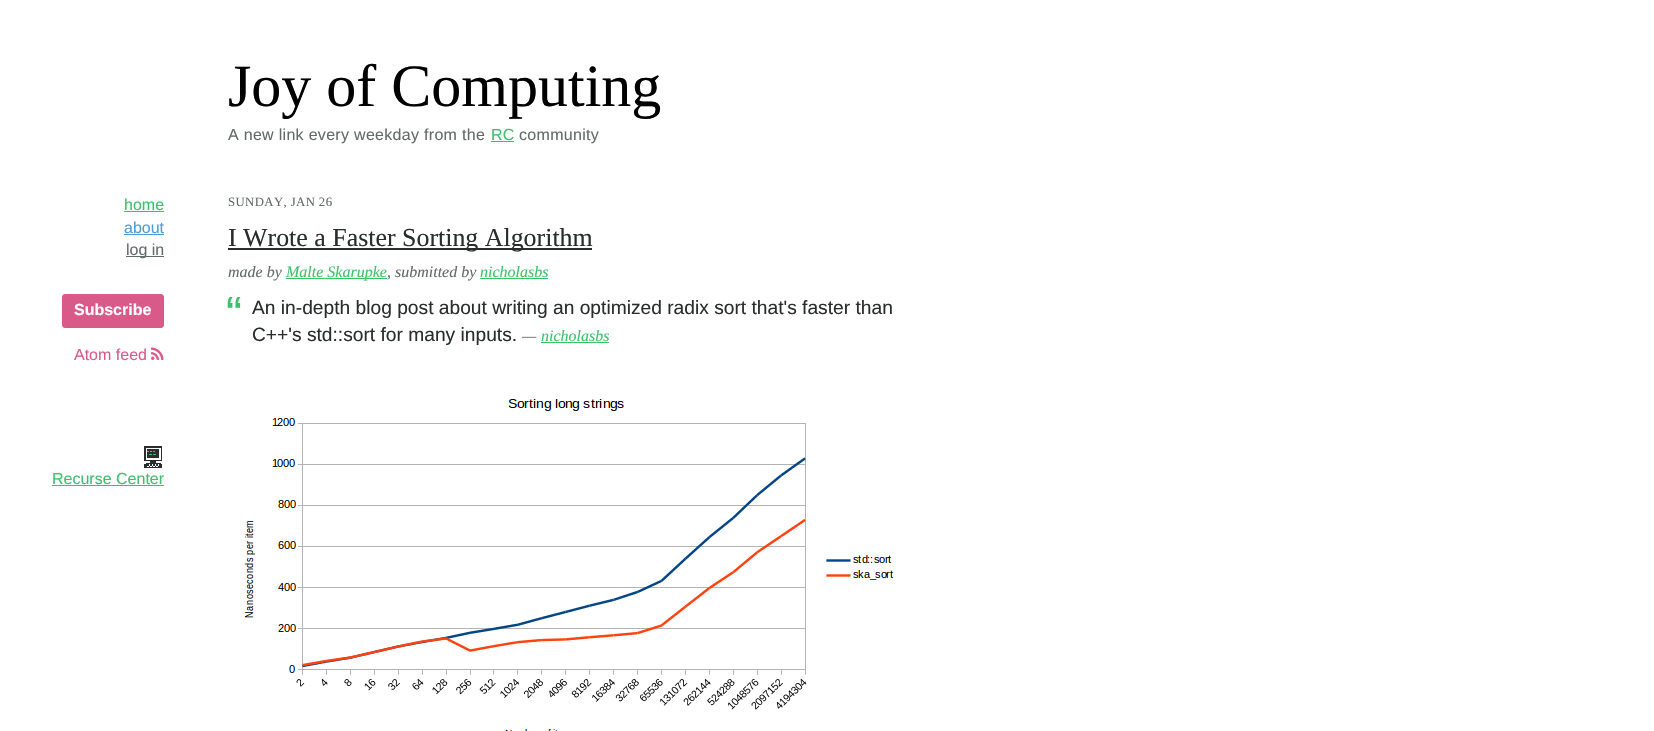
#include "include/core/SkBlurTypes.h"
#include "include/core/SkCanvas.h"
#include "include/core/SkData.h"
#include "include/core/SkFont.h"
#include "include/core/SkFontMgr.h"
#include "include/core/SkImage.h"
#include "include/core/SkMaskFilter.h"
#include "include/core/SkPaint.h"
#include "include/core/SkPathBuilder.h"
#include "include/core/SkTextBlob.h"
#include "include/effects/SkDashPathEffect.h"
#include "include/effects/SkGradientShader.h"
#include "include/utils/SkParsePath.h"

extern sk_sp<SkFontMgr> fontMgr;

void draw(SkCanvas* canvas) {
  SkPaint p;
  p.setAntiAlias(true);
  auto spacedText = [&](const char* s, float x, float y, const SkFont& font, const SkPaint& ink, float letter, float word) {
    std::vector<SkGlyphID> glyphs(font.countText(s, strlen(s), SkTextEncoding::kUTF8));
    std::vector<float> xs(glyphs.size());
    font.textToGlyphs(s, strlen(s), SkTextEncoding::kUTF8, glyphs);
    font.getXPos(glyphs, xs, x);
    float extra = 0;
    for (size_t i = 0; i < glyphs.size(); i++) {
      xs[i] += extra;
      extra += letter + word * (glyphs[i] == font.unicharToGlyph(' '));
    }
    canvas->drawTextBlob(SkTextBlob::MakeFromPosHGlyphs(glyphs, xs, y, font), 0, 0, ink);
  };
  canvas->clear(SK_ColorWHITE);
  p.setColor(SkColorSetRGB(61, 192, 108));
  canvas->drawRect(SkRect::MakeLTRB(491, 141, 514, 142), p);
  canvas->drawRect(SkRect::MakeLTRB(124, 211, 164, 212), p);
  p.setColor(SkColorSetRGB(77, 155, 216));
  canvas->drawRect(SkRect::MakeLTRB(124, 234, 164, 235), p);
  p.setColor(SkColorSetRGB(98, 106, 106));
  canvas->drawRect(SkRect::MakeLTRB(126, 256, 164, 257), p);
  p.setColor(SkColorSetRGB(217, 90, 136));
  canvas->drawRoundRect(SkRect::MakeLTRB(62.5f, 294.5f, 163.5f, 327.5f), 2.5f, 2.5f, p);
  p.setStyle(SkPaint::kStroke_Style);
  p.setStrokeWidth(1);
  canvas->drawRoundRect(SkRect::MakeLTRB(62.5f, 294.5f, 163.5f, 327.5f), 2.5f, 2.5f, p);
  canvas->drawImageRect(SkImages::DeferredFromEncodedData(SkData::MakeFromFileName("images/1.png")), SkRect::MakeLTRB(151, 347, 164, 360), SkSamplingOptions());
  canvas->drawImageRect(SkImages::DeferredFromEncodedData(SkData::MakeFromFileName("images/2.png")), SkRect::MakeLTRB(144, 446, 162, 468), SkSamplingOptions());
  p.setStyle(SkPaint::kFill_Style);
  p.setColor(SkColorSetRGB(61, 192, 108));
  canvas->drawRect(SkRect::MakeLTRB(52, 485, 164, 486), p);
  p.setColor(SkColorSetRGB(42, 45, 45));
  canvas->drawRect(SkRect::MakeLTRB(228, 248, 592, 250), p);
  p.setColor(SkColorSetRGB(61, 192, 108));
  canvas->drawRect(SkRect::MakeLTRB(286, 278, 387, 279), p);
  canvas->drawRect(SkRect::MakeLTRB(480, 278, 548, 279), p);
  canvas->drawRect(SkRect::MakeLTRB(541, 342, 609, 343), p);
  canvas->drawImageRect(SkImages::DeferredFromEncodedData(SkData::MakeFromFileName("images/3.png")), SkRect::MakeLTRB(244, 399, 894, 731), SkSamplingOptions());
  SkFont font1(fontMgr->matchFamilyStyle("Liberation Serif", SkFontStyle::Normal()), 60);
  font1.setSubpixel(true);
  p.setColor(SK_ColorBLACK);
  canvas->drawString("Joy of Computing", 228, 106, font1, p);
  SkFont font2(fontMgr->matchFamilyStyle("Liberation Sans", SkFontStyle::Normal()), 16);
  font2.setSubpixel(true);
  p.setColor(SkColorSetRGB(98, 106, 106));
  spacedText("A new link every weekday from the", 228, 140, font2, p, 0.3f, 0);
  p.setColor(SkColorSetRGB(61, 192, 108));
  spacedText("RC", 491, 140, font2, p, 0.3f, 0);
  p.setColor(SkColorSetRGB(98, 106, 106));
  spacedText("community", 519, 140, font2, p, 0.3f, 0);
  p.setColor(SkColorSetRGB(61, 192, 108));
  canvas->drawString("home", 124, 210, font2, p);
  p.setColor(SkColorSetRGB(77, 155, 216));
  canvas->drawString("about", 124, 233, font2, p);
  p.setColor(SkColorSetRGB(98, 106, 106));
  canvas->drawString("log in", 126, 255, font2, p);
  SkFont font3(fontMgr->matchFamilyStyle("Liberation Sans", SkFontStyle::Bold()), 16);
  font3.setSubpixel(true);
  p.setColor(SK_ColorWHITE);
  canvas->drawString("Subscribe", 74, 315, font3, p);
  p.setColor(SkColorSetRGB(217, 90, 136));
  canvas->drawString("Atom feed", 74, 360, font2, p);
  p.setColor(SkColorSetRGB(61, 192, 108));
  canvas->drawString("Recurse Center", 52, 484, font2, p);
  SkFont font4(fontMgr->matchFamilyStyle("Liberation Serif", SkFontStyle::Normal()), 12.75f);
  font4.setSubpixel(true);
  p.setColor(SkColorSetRGB(98, 106, 106));
  spacedText("SUNDAY, JAN 26", 228, 206, font4, p, 0.4f, 0);
  SkFont font5(fontMgr->matchFamilyStyle("Liberation Serif", SkFontStyle::Normal()), 25.9f);
  font5.setSubpixel(true);
  p.setColor(SkColorSetRGB(42, 45, 45));
  canvas->drawString("I Wrote a Faster Sorting Algorithm", 228, 246, font5, p);
  SkFont font6(fontMgr->matchFamilyStyle("Liberation Serif", SkFontStyle::Italic()), 16);
  font6.setSubpixel(true);
  p.setColor(SkColorSetRGB(98, 106, 106));
  canvas->drawString("made by", 228, 277, font6, p);
  p.setColor(SkColorSetRGB(61, 192, 108));
  canvas->drawString("Malte Skarupke", 286, 277, font6, p);
  p.setColor(SkColorSetRGB(98, 106, 106));
  canvas->drawString(", submitted by", 387, 277, font6, p);
  p.setColor(SkColorSetRGB(61, 192, 108));
  canvas->drawString("nicholasbs", 480, 277, font6, p);
  SkFont font7(fontMgr->matchFamilyStyle("Liberation Sans", SkFontStyle::Normal()), 48);
  font7.setSubpixel(true);
  canvas->drawString("“", 226, 330, font7, p);
  SkFont font8(fontMgr->matchFamilyStyle("Liberation Sans", SkFontStyle::Normal()), 19.2f);
  font8.setSubpixel(true);
  p.setColor(SkColorSetRGB(42, 45, 45));
  canvas->drawString("An in-depth blog post about writing an optimized radix sort that's faster than", 252, 314, font8, p);
  canvas->drawString("C++'s std::sort for many inputs.", 252, 341, font8, p);
  p.setColor(SkColorSetRGB(98, 106, 106));
  canvas->drawString("—", 522, 341, font6, p);
  p.setColor(SkColorSetRGB(61, 192, 108));
  canvas->drawString("nicholasbs", 541, 341, font6, p);
}
